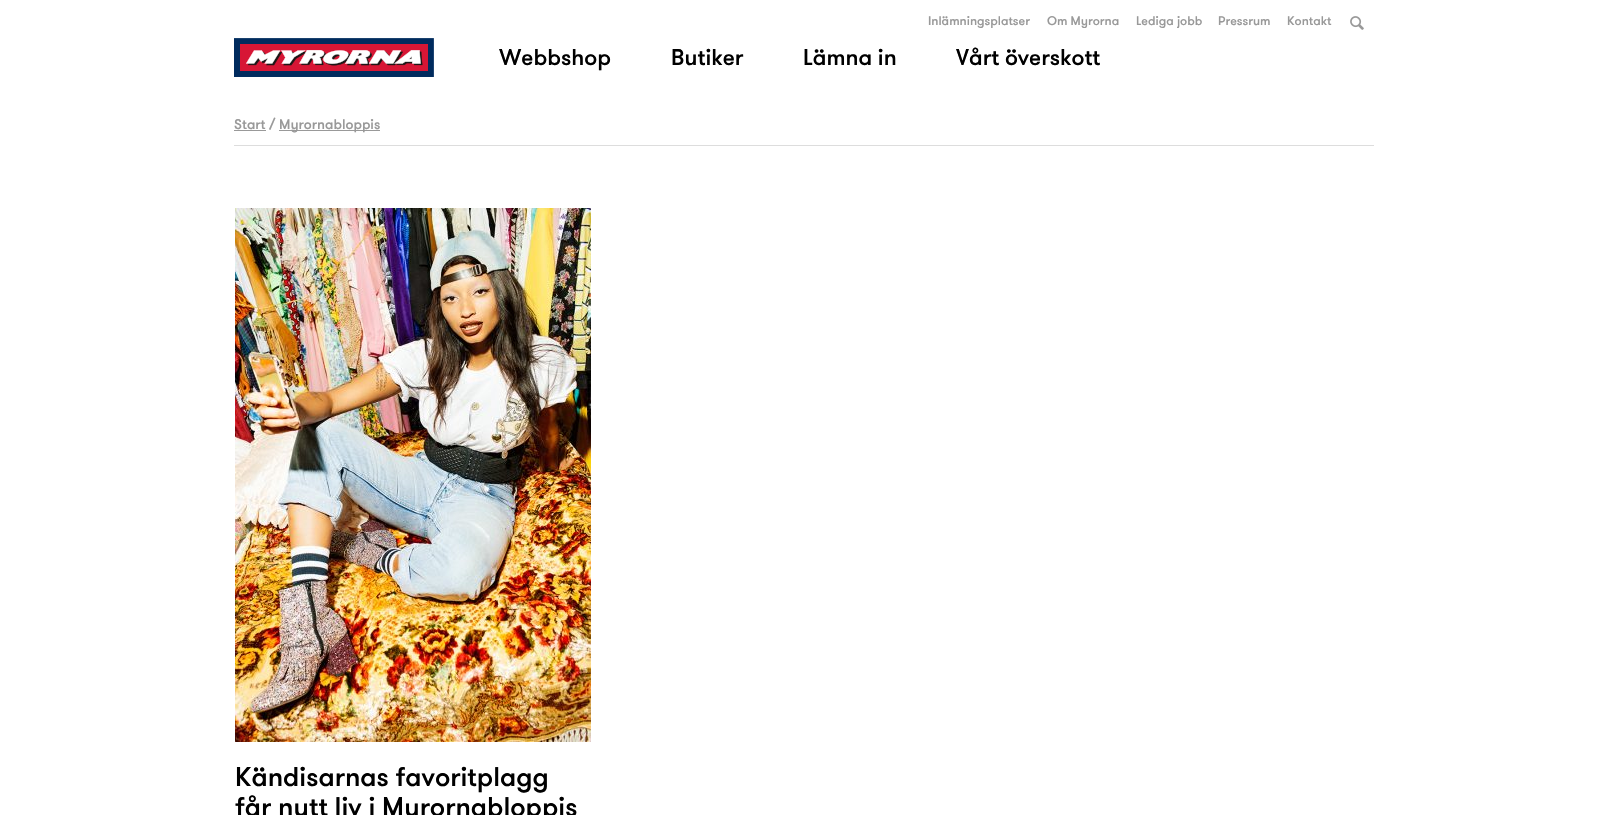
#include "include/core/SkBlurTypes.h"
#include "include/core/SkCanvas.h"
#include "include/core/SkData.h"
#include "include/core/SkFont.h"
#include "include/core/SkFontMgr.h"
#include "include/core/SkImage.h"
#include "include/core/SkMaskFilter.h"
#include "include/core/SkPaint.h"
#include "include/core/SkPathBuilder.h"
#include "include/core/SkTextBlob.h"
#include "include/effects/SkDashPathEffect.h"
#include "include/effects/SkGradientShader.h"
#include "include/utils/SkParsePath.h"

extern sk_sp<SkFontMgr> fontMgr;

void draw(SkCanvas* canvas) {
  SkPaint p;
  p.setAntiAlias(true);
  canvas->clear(SK_ColorWHITE);
  canvas->drawImageRect(SkImages::DeferredFromEncodedData(SkData::MakeFromFileName("images/1.png")), SkRect::MakeLTRB(234, 38, 434, 77), SkSamplingOptions());
  canvas->drawImageRect(SkImages::DeferredFromEncodedData(SkData::MakeFromFileName("images/2.png")), SkRect::MakeLTRB(1350, 16, 1364, 30), SkSamplingOptions());
  p.setColor(SkColorSetRGB(153, 153, 153));
  canvas->drawRect(SkRect::MakeLTRB(234, 130, 266, 131), p);
  canvas->drawRect(SkRect::MakeLTRB(279, 130, 380, 131), p);
  p.setColor(SkColorSetRGB(221, 221, 221));
  canvas->drawRect(SkRect::MakeLTRB(234, 145, 1374, 146), p);
  canvas->drawImageRect(SkImages::DeferredFromEncodedData(SkData::MakeFromFileName("images/3.png")), SkRect::MakeLTRB(235, 208, 591, 742), SkSamplingOptions());
  SkFont font1(fontMgr->matchFamilyStyle("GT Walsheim", SkFontStyle(500, SkFontStyle::kNormal_Width, SkFontStyle::kUpright_Slant)), 12.5f);
  font1.setSubpixel(true);
  p.setColor(SkColorSetRGB(153, 153, 153));
  canvas->drawString("Inlämningsplatser", 928, 25, font1, p);
  canvas->drawString("Om Myrorna", 1047, 25, font1, p);
  canvas->drawString("Lediga jobb", 1136, 25, font1, p);
  canvas->drawString("Pressrum", 1218, 25, font1, p);
  canvas->drawString("Kontakt", 1287, 25, font1, p);
  SkFont font2(fontMgr->matchFamilyStyle("GT Walsheim", SkFontStyle(500, SkFontStyle::kNormal_Width, SkFontStyle::kUpright_Slant)), 22.75f);
  font2.setSubpixel(true);
  p.setColor(SK_ColorBLACK);
  canvas->drawString("Webbshop", 499, 65, font2, p);
  canvas->drawString("Butiker", 671, 65, font2, p);
  canvas->drawString("Lämna in", 803, 65, font2, p);
  canvas->drawString("Vårt överskott", 956, 65, font2, p);
  SkFont font3(fontMgr->matchFamilyStyle("GT Walsheim", SkFontStyle(500, SkFontStyle::kNormal_Width, SkFontStyle::kUpright_Slant)), 14);
  font3.setSubpixel(true);
  p.setColor(SkColorSetRGB(153, 153, 153));
  canvas->drawString("Start /", 234, 129, font3, p);
  canvas->drawString("Myrornabloppis", 279, 129, font3, p);
  SkFont font4(fontMgr->matchFamilyStyle("GT Walsheim", SkFontStyle(500, SkFontStyle::kNormal_Width, SkFontStyle::kUpright_Slant)), 27);
  font4.setSubpixel(true);
  p.setColor(SK_ColorBLACK);
  canvas->drawString("Kändisarnas favoritplagg", 235, 786, font4, p);
  canvas->drawString("får nytt liv i Myrornabloppis", 235, 816, font4, p);
}
